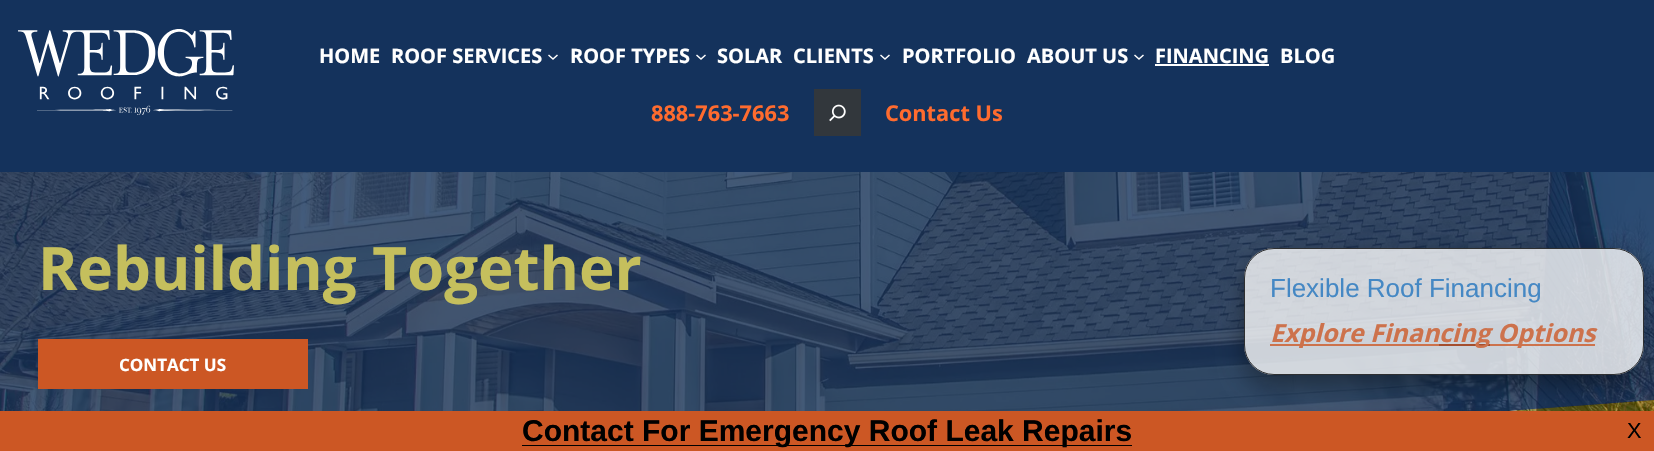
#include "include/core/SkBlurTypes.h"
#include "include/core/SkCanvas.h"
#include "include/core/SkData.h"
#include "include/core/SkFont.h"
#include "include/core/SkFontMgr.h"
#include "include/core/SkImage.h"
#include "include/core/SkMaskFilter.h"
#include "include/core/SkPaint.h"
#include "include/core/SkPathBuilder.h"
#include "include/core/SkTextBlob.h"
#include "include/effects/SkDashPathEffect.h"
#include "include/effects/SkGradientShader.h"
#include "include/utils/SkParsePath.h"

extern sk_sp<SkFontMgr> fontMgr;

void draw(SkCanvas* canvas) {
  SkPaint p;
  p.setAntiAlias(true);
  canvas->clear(SK_ColorWHITE);
  canvas->drawImageRect(SkImages::DeferredFromEncodedData(SkData::MakeFromFileName("images/3.png")), SkRect::MakeLTRB(0, 172, 1654, 411), SkSamplingOptions());
  p.setColor(SkColorSetARGB(128, 123, 118, 0));
  canvas->drawPath(SkPathBuilder().moveTo(1654, 400).lineTo(1025, 447).lineTo(1654, 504).close().detach(), p);
  p.setColor(SkColorSetARGB(204, 20, 50, 92));
  canvas->drawPath(SkPathBuilder().moveTo(0, 0).lineTo(1654, 0).lineTo(1654, 400).lineTo(1025, 447).lineTo(0, 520).close().detach(), p);
  p.setColor(SkColorSetRGB(20, 50, 92));
  canvas->drawRect(SkRect::MakeLTRB(0, 0, 1654, 172), p);
  canvas->drawImageRect(SkImages::DeferredFromEncodedData(SkData::MakeFromFileName("images/1.png")), SkRect::MakeLTRB(18, 29, 234, 115), SkSamplingOptions());
  p.setStyle(SkPaint::kStroke_Style);
  p.setStrokeWidth(1.5f);
  p.setColor(SK_ColorWHITE);
  canvas->drawPath(SkPathBuilder().moveTo(548.5f, 55).lineTo(553, 59).lineTo(557.5f, 55).detach(), p);
  canvas->drawPath(SkPathBuilder().moveTo(696.5f, 55).lineTo(701, 59).lineTo(705.5f, 55).detach(), p);
  canvas->drawPath(SkPathBuilder().moveTo(880.5f, 55).lineTo(885, 59).lineTo(889.5f, 55).detach(), p);
  canvas->drawPath(SkPathBuilder().moveTo(1134.5f, 55).lineTo(1139, 59).lineTo(1143.5f, 55).detach(), p);
  p.setStyle(SkPaint::kFill_Style);
  canvas->drawRect(SkRect::MakeLTRB(1155, 64, 1269, 66), p);
  p.setColor(SkColorSetRGB(50, 55, 60));
  canvas->drawRect(SkRect::MakeLTRB(814, 89, 861, 136), p);
  canvas->drawImageRect(SkImages::DeferredFromEncodedData(SkData::MakeFromFileName("images/2.png")), SkRect::MakeLTRB(829, 104, 846, 122), SkSamplingOptions());
  p.setColor(SkColorSetRGB(204, 87, 36));
  canvas->drawRect(SkRect::MakeLTRB(38, 339, 308, 389), p);
  canvas->drawRect(SkRect::MakeLTRB(0, 411, 1654, 451), p);
  canvas->save();
  canvas->clipPath(SkPathBuilder(SkPathFillType::kEvenOdd).moveTo(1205, 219).lineTo(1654, 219).lineTo(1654, 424).lineTo(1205, 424).close().moveTo(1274, 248).lineTo(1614, 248).cubicTo(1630.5f, 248, 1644, 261.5f, 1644, 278).lineTo(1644, 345).cubicTo(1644, 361.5f, 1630.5f, 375, 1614, 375).lineTo(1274, 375).cubicTo(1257.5f, 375, 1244, 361.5f, 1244, 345).lineTo(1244, 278).cubicTo(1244, 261.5f, 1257.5f, 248, 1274, 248).close().detach(), true);
  p.setColor(SkColorSetARGB(99, 2, 2, 2));
  p.setMaskFilter(SkMaskFilter::MakeBlur(kNormal_SkBlurStyle, 12.5f));
  canvas->drawRoundRect(SkRect::MakeLTRB(1244, 258, 1644, 385), 30, 30, p);
  p.setMaskFilter(nullptr);
  canvas->restore();
  p.setColor(SkColorSetARGB(199, 255, 255, 255));
  canvas->drawRoundRect(SkRect::MakeLTRB(1244, 248, 1644, 375), 30, 30, p);
  p.setStyle(SkPaint::kStroke_Style);
  p.setStrokeWidth(1);
  p.setColor(SkColorSetARGB(199, 0, 0, 0));
  canvas->drawRoundRect(SkRect::MakeLTRB(1244.5f, 248.5f, 1643.5f, 374.5f), 29.5f, 29.5f, p);
  p.setStyle(SkPaint::kFill_Style);
  p.setColor(SkColorSetRGB(204, 114, 76));
  canvas->drawRect(SkRect::MakeLTRB(1270, 344, 1364, 346), p);
  p.setColor(SkColorSetRGB(164, 78, 46));
  canvas->drawRect(SkRect::MakeLTRB(1439, 344, 1490, 346), p);
  p.setColor(SK_ColorBLACK);
  canvas->drawRect(SkRect::MakeLTRB(522, 445, 1132, 446), p);
  SkFont font1(fontMgr->matchFamilyStyle("Open Sans", SkFontStyle::Bold()), 20);
  font1.setSubpixel(true);
  p.setColor(SK_ColorWHITE);
  canvas->drawString("HOME", 319, 63, font1, p);
  canvas->drawString("ROOF SERVICES", 391, 63, font1, p);
  canvas->drawString("ROOF TYPES", 570, 63, font1, p);
  canvas->drawString("SOLAR", 717, 63, font1, p);
  canvas->drawString("CLIENTS", 793, 63, font1, p);
  canvas->drawString("PORTFOLIO", 902, 63, font1, p);
  canvas->drawString("ABOUT US", 1027, 63, font1, p);
  canvas->drawString("FINANCING", 1155, 63, font1, p);
  canvas->drawString("BLOG", 1280, 63, font1, p);
  SkFont font2(fontMgr->matchFamilyStyle("Open Sans", SkFontStyle::Bold()), 21.75f);
  font2.setSubpixel(true);
  p.setColor(SkColorSetRGB(255, 107, 46));
  canvas->drawString("888-763-7663", 651, 121, font2, p);
  canvas->drawString("Contact Us", 885, 121, font2, p);
  SkFont font3(fontMgr->matchFamilyStyle("Open Sans", SkFontStyle::Bold()), 60);
  font3.setSubpixel(true);
  p.setColor(SkColorSetRGB(197, 191, 93));
  canvas->drawString("Rebuilding Together", 38, 290, font3, p);
  SkFont font4(fontMgr->matchFamilyStyle("Open Sans", SkFontStyle::Bold()), 17);
  font4.setSubpixel(true);
  p.setColor(SK_ColorWHITE);
  canvas->drawString("CONTACT US", 119, 371, font4, p);
  SkFont font5(fontMgr->matchFamilyStyle("Liberation Sans", SkFontStyle::Normal()), 26);
  font5.setSubpixel(true);
  p.setColor(SkColorSetRGB(69, 136, 196));
  canvas->drawString("Flexible Roof Financing", 1270, 297, font5, p);
  SkFont font6(fontMgr->matchFamilyStyle("Open Sans", SkFontStyle::BoldItalic()), 25);
  font6.setSubpixel(true);
  p.setColor(SkColorSetRGB(205, 114, 76));
  canvas->drawString("Explore", 1270, 342, font6, p);
  canvas->drawString("Finan", 1370, 342, font6, p);
  p.setColor(SkColorSetRGB(204, 114, 76));
  canvas->drawRect(SkRect::MakeLTRB(1364, 344, 1439, 346), p);
  p.setColor(SkColorSetRGB(205, 114, 76));
  canvas->drawString("cing", 1439, 342, font6, p);
  p.setColor(SkColorSetARGB(199, 204, 87, 36));
  canvas->drawRect(SkRect::MakeLTRB(1490, 344, 1595, 346), p);
  p.setColor(SkColorSetRGB(205, 114, 76));
  canvas->drawString("Options", 1497, 342, font6, p);
  SkFont font7(fontMgr->matchFamilyStyle("Liberation Sans", SkFontStyle::Bold()), 30);
  font7.setSubpixel(true);
  p.setColor(SK_ColorBLACK);
  canvas->drawString("Contact For Emergency Roof Leak Repairs", 522, 441, font7, p);
  SkFont font8(fontMgr->matchFamilyStyle("Liberation Sans", SkFontStyle::Normal()), 21.75f);
  font8.setSubpixel(true);
  canvas->drawString("X", 1627, 438, font8, p);
}
